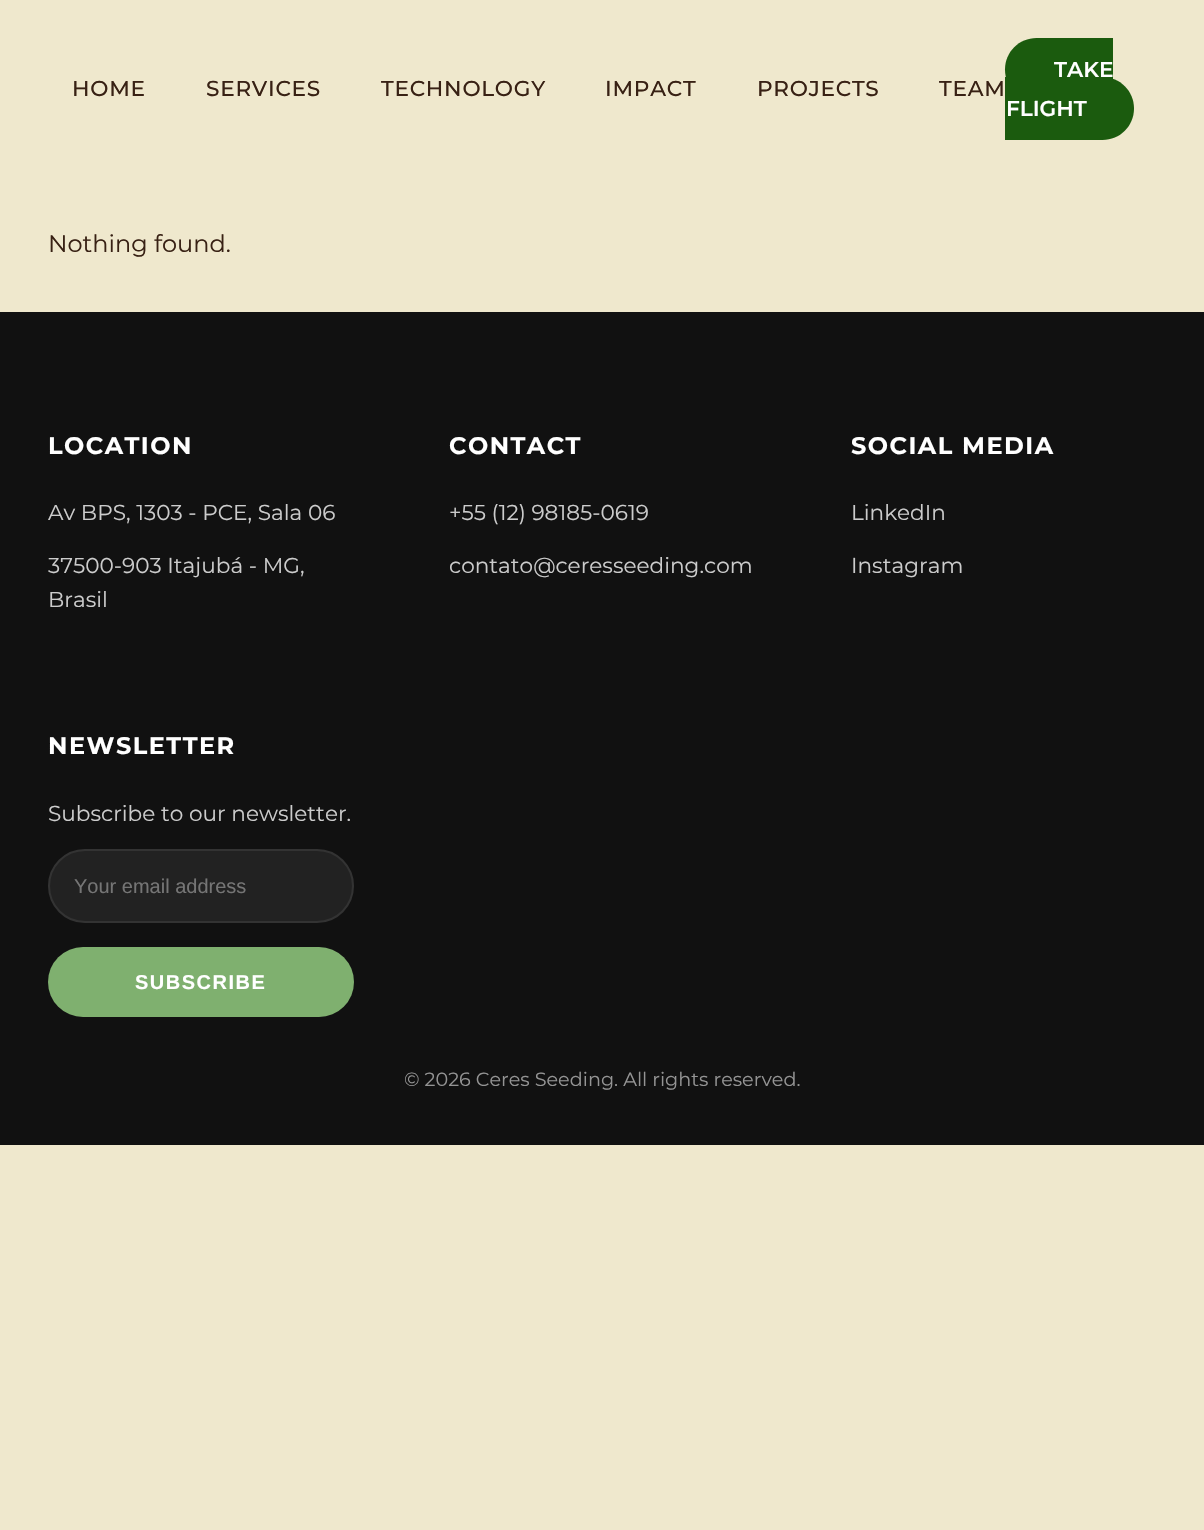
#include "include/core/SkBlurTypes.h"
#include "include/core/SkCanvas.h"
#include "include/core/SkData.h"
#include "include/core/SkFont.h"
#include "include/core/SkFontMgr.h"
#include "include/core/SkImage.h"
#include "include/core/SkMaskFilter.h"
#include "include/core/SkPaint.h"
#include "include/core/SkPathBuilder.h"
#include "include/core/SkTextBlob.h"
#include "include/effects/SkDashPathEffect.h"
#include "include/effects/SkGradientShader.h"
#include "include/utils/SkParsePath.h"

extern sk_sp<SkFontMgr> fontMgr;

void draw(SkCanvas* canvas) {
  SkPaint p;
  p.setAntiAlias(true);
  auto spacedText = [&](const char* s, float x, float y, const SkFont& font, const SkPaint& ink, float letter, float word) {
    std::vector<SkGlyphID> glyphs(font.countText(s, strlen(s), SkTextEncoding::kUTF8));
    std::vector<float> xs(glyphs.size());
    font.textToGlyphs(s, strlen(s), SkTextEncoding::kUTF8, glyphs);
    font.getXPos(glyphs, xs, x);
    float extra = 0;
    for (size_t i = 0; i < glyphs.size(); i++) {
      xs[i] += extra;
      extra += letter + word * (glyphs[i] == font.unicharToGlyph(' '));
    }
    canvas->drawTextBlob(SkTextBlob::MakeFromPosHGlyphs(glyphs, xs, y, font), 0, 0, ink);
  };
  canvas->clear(SkColorSetRGB(239, 232, 205));
  p.setColor(SkColorSetRGB(27, 91, 14));
  canvas->drawPath(SkPathBuilder().moveTo(1036.5f, 38).lineTo(1113, 38).lineTo(1113, 101).lineTo(1036.5f, 101).cubicTo(1019, 101, 1005, 87, 1005, 69.5f).cubicTo(1005, 52, 1019, 38, 1036.5f, 38).close().detach(), p);
  canvas->drawPath(SkPathBuilder().moveTo(1005, 77).lineTo(1102.5f, 77).cubicTo(1120, 77, 1134, 91, 1134, 108.5f).cubicTo(1134, 126, 1120, 140, 1102.5f, 140).lineTo(1005, 140).close().detach(), p);
  p.setColor(SkColorSetRGB(17, 17, 17));
  canvas->drawRect(SkRect::MakeLTRB(0, 312, 1204, 1145), p);
  p.setColor(SkColorSetRGB(34, 34, 34));
  canvas->drawRoundRect(SkRect::MakeLTRB(49, 850, 353, 922), 36, 36, p);
  p.setStyle(SkPaint::kStroke_Style);
  p.setStrokeWidth(2);
  p.setColor(SkColorSetRGB(51, 51, 51));
  canvas->drawRoundRect(SkRect::MakeLTRB(49, 850, 353, 922), 36, 36, p);
  p.setStyle(SkPaint::kFill_Style);
  p.setColor(SkColorSetRGB(127, 176, 111));
  canvas->drawRoundRect(SkRect::MakeLTRB(48, 947, 354, 1017), 35, 35, p);
  SkFont font1(fontMgr->matchFamilyStyle("Montserrat", SkFontStyle(500, SkFontStyle::kNormal_Width, SkFontStyle::kUpright_Slant)), 21.6f);
  font1.setSubpixel(true);
  p.setColor(SkColorSetRGB(56, 33, 20));
  spacedText("HOME", 72, 96, font1, p, 0.75f, 0);
  spacedText("SERVICES", 206, 96, font1, p, 0.75f, 0);
  spacedText("TECHNOLOGY", 381, 96, font1, p, 0.75f, 0);
  spacedText("IMPACT", 605, 96, font1, p, 0.75f, 0);
  spacedText("PROJECTS", 757, 96, font1, p, 0.75f, 0);
  spacedText("TEAM", 939, 96, font1, p, 0.75f, 0);
  SkFont font2(fontMgr->matchFamilyStyle("Montserrat", SkFontStyle(600, SkFontStyle::kNormal_Width, SkFontStyle::kUpright_Slant)), 21.6f);
  font2.setSubpixel(true);
  p.setColor(SK_ColorWHITE);
  canvas->drawString("TAKE", 1054, 77, font2, p);
  canvas->drawString("FLIGHT", 1006, 116, font2, p);
  SkFont font3(fontMgr->matchFamilyStyle("Montserrat", SkFontStyle::Normal()), 24);
  font3.setSubpixel(true);
  p.setColor(SkColorSetRGB(56, 33, 20));
  canvas->drawString("Nothing found.", 48, 252, font3, p);
  SkFont font4(fontMgr->matchFamilyStyle("Montserrat", SkFontStyle::Bold()), 24);
  font4.setSubpixel(true);
  p.setColor(SK_ColorWHITE);
  spacedText("LOCATION", 48, 454, font4, p, 1.5f, 0);
  SkFont font5(fontMgr->matchFamilyStyle("Montserrat", SkFontStyle::Normal()), 21.6f);
  font5.setSubpixel(true);
  p.setColor(SkColorSetRGB(204, 204, 204));
  canvas->drawString("Av BPS, 1303 - PCE, Sala 06", 48, 520, font5, p);
  canvas->drawString("37500-903 Itajubá - MG,", 48, 573, font5, p);
  canvas->drawString("Brasil", 48, 607, font5, p);
  p.setColor(SK_ColorWHITE);
  spacedText("CONTACT", 449, 454, font4, p, 1.5f, 0);
  p.setColor(SkColorSetRGB(204, 204, 204));
  canvas->drawString("+55 (12) 98185-0619", 449, 520, font5, p);
  canvas->drawString("contato@ceresseeding.com", 449, 573, font5, p);
  p.setColor(SK_ColorWHITE);
  spacedText("SOCIAL MEDIA", 851, 454, font4, p, 1.5f, 0);
  p.setColor(SkColorSetRGB(204, 204, 204));
  canvas->drawString("LinkedIn", 851, 520, font5, p);
  canvas->drawString("Instagram", 851, 573, font5, p);
  p.setColor(SK_ColorWHITE);
  spacedText("NEWSLETTER", 48, 754, font4, p, 1.5f, 0);
  p.setColor(SkColorSetRGB(204, 204, 204));
  canvas->drawString("Subscribe to our newsletter.", 48, 821, font5, p);
  SkFont font6(fontMgr->matchFamilyStyle("Liberation Sans", SkFontStyle::Normal()), 20);
  font6.setSubpixel(true);
  p.setColor(SkColorSetRGB(117, 117, 117));
  canvas->drawString("Your email address", 74, 893, font6, p);
  SkFont font7(fontMgr->matchFamilyStyle("Liberation Sans", SkFontStyle::Bold()), 20);
  font7.setSubpixel(true);
  p.setColor(SK_ColorWHITE);
  spacedText("SUBSCRIBE", 135, 989, font7, p, 1.5f, 0);
  SkFont font8(fontMgr->matchFamilyStyle("Montserrat", SkFontStyle::Normal()), 19.2f);
  font8.setSubpixel(true);
  p.setColor(SkColorSetRGB(148, 148, 148));
  canvas->drawString("© 2026 Ceres Seeding. All rights reserved.", 404, 1086, font8, p);
}
